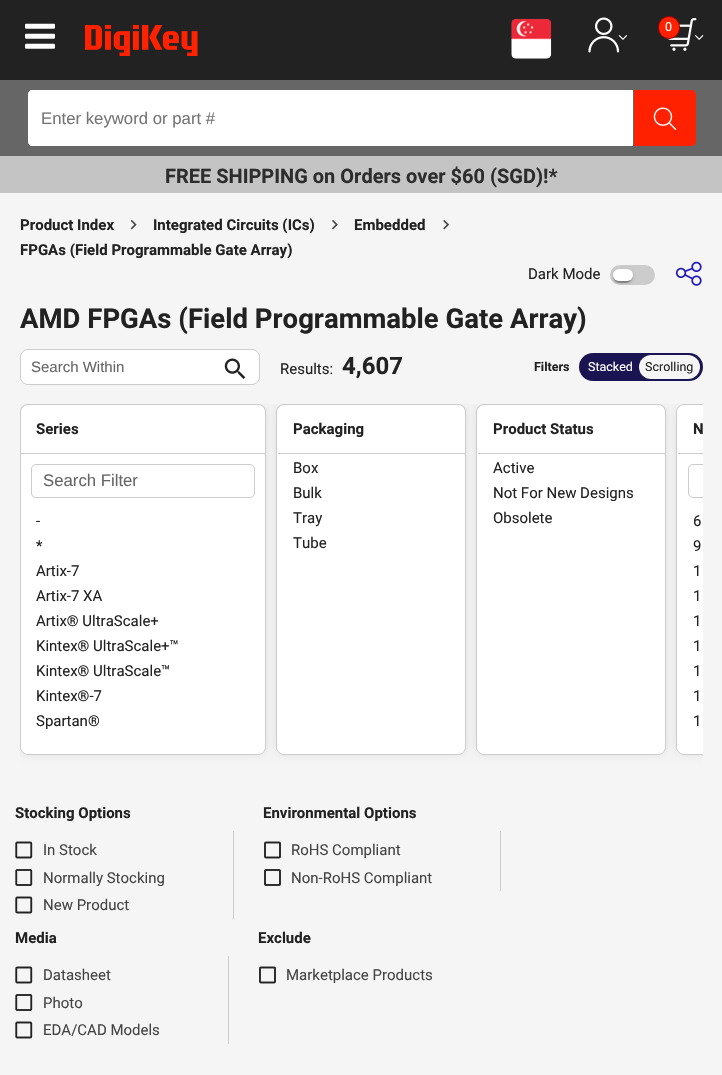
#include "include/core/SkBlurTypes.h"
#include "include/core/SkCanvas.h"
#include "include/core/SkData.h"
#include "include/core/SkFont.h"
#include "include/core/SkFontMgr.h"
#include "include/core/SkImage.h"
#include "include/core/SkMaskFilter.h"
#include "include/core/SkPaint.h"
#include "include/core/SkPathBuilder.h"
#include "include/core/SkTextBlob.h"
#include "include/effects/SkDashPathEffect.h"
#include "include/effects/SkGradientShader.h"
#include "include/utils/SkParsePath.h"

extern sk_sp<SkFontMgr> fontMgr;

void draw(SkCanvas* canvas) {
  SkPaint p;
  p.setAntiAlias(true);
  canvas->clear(SkColorSetRGB(245, 245, 245));
  p.setColor(SkColorSetRGB(34, 34, 34));
  canvas->drawRect(SkRect::MakeLTRB(0, 0, 722, 80), p);
  canvas->drawImageRect(SkImages::DeferredFromEncodedData(SkData::MakeFromFileName("images/1.png")), SkRect::MakeLTRB(25, 23, 55, 49), SkSamplingOptions());
  canvas->drawImageRect(SkImages::DeferredFromEncodedData(SkData::MakeFromFileName("images/2.png")), SkRect::MakeLTRB(85, 25, 198, 56), SkSamplingOptions());
  canvas->drawImageRect(SkImages::DeferredFromEncodedData(SkData::MakeFromFileName("images/3.png")), SkRect::MakeLTRB(511, 18, 552, 59), SkSamplingOptions());
  canvas->drawImageRect(SkImages::DeferredFromEncodedData(SkData::MakeFromFileName("images/4.png")), SkRect::MakeLTRB(588, 17, 620, 53), SkSamplingOptions());
  canvas->drawImageRect(SkImages::DeferredFromEncodedData(SkData::MakeFromFileName("images/5.png")), SkRect::MakeLTRB(618, 35, 628, 40), SkSamplingOptions());
  canvas->drawImageRect(SkImages::DeferredFromEncodedData(SkData::MakeFromFileName("images/6.png")), SkRect::MakeLTRB(667, 18, 697, 51), SkSamplingOptions());
  p.setColor(SkColorSetRGB(255, 33, 0));
  canvas->drawRoundRect(SkRect::MakeLTRB(658.5f, 16.5f, 679.5f, 38.5f), 10.5f, 10.5f, p);
  p.setStyle(SkPaint::kStroke_Style);
  p.setStrokeWidth(1);
  p.setColor(SkColorSetRGB(162, 0, 0));
  canvas->drawRoundRect(SkRect::MakeLTRB(658.5f, 16.5f, 679.5f, 38.5f), 10.5f, 10.5f, p);
  canvas->drawImageRect(SkImages::DeferredFromEncodedData(SkData::MakeFromFileName("images/7.png")), SkRect::MakeLTRB(695, 35, 704, 40), SkSamplingOptions());
  p.setStyle(SkPaint::kFill_Style);
  p.setColor(SkColorSetRGB(102, 102, 102));
  canvas->drawRect(SkRect::MakeLTRB(0, 80, 722, 156), p);
  p.setColor(SK_ColorWHITE);
  canvas->drawPath(SkPathBuilder().moveTo(33, 90).lineTo(633, 90).lineTo(633, 146).lineTo(33, 146).cubicTo(30, 146, 28, 144, 28, 141).lineTo(28, 95).cubicTo(28, 92, 30, 90, 33, 90).close().detach(), p);
  canvas->drawPath(SkPathBuilder(SkPathFillType::kEvenOdd).moveTo(32, 90).lineTo(632, 90).lineTo(632, 146).lineTo(32, 146).cubicTo(30, 146, 28, 144, 28, 141).lineTo(28, 95).cubicTo(28, 92, 30, 90, 32, 90).close().moveTo(32, 91).lineTo(632, 91).lineTo(632, 145).lineTo(32, 145).cubicTo(30, 145, 29, 143, 29, 141).lineTo(29, 95).cubicTo(29, 93, 30, 91, 32, 91).close().detach(), p);
  p.setColor(SkColorSetRGB(255, 33, 0));
  canvas->drawPath(SkPathBuilder().moveTo(634, 90).lineTo(691, 90).cubicTo(694, 90, 696, 92, 696, 95).lineTo(696, 141).cubicTo(696, 144, 694, 146, 691, 146).lineTo(634, 146).close().detach(), p);
  canvas->drawImageRect(SkImages::DeferredFromEncodedData(SkData::MakeFromFileName("images/8.png")), SkRect::MakeLTRB(653, 107, 677, 130), SkSamplingOptions());
  p.setColor(SkColorSetRGB(196, 196, 196));
  canvas->drawRect(SkRect::MakeLTRB(0, 156, 722, 193), p);
  canvas->drawImageRect(SkImages::DeferredFromEncodedData(SkData::MakeFromFileName("images/9.png")), SkRect::MakeLTRB(130, 219, 137, 230), SkSamplingOptions());
  canvas->drawImageRect(SkImages::DeferredFromEncodedData(SkData::MakeFromFileName("images/10.png")), SkRect::MakeLTRB(332, 220, 338, 230), SkSamplingOptions());
  canvas->drawImageRect(SkImages::DeferredFromEncodedData(SkData::MakeFromFileName("images/11.png")), SkRect::MakeLTRB(443, 219, 449, 230), SkSamplingOptions());
  p.setColor(SkColorSetRGB(204, 204, 204));
  canvas->drawRoundRect(SkRect::MakeLTRB(610, 265, 655, 285), 10, 10, p);
  p.setColor(SkColorSetARGB(31, 0, 0, 0));
  p.setMaskFilter(SkMaskFilter::MakeBlur(kNormal_SkBlurStyle, 2));
  canvas->drawRoundRect(SkRect::MakeLTRB(613, 270, 633, 283), 6.5f, 6.5f, p);
  p.setMaskFilter(nullptr);
  p.setColor(SkColorSetARGB(36, 0, 0, 0));
  p.setMaskFilter(SkMaskFilter::MakeBlur(kNormal_SkBlurStyle, 0.5f));
  canvas->drawRoundRect(SkRect::MakeLTRB(613, 270, 633, 283), 6.5f, 6.5f, p);
  p.setMaskFilter(nullptr);
  p.setColor(SkColorSetARGB(51, 0, 0, 0));
  p.setMaskFilter(SkMaskFilter::MakeBlur(kNormal_SkBlurStyle, 0.5f));
  canvas->drawRoundRect(SkRect::MakeLTRB(614, 273, 631, 283), 5, 5, p);
  p.setMaskFilter(nullptr);
  p.setColor(SK_ColorWHITE);
  canvas->drawRoundRect(SkRect::MakeLTRB(613, 269, 633, 281), 6, 6, p);
  canvas->drawImageRect(SkImages::DeferredFromEncodedData(SkData::MakeFromFileName("images/12.png")), SkRect::MakeLTRB(675, 261, 702, 286), SkSamplingOptions());
  canvas->drawRoundRect(SkRect::MakeLTRB(20.5f, 349.5f, 259.5f, 384.5f), 7.5f, 7.5f, p);
  p.setStyle(SkPaint::kStroke_Style);
  p.setColor(SkColorSetRGB(204, 204, 204));
  canvas->drawRoundRect(SkRect::MakeLTRB(20.5f, 349.5f, 259.5f, 384.5f), 7.5f, 7.5f, p);
  p.setStyle(SkPaint::kFill_Style);
  p.setColor(SK_ColorWHITE);
  canvas->drawRoundRect(SkRect::MakeLTRB(21, 350, 219, 384), 8, 8, p);
  canvas->drawImageRect(SkImages::DeferredFromEncodedData(SkData::MakeFromFileName("images/13.png")), SkRect::MakeLTRB(224, 358, 246, 379), SkSamplingOptions());
  p.setColor(SkColorSetRGB(26, 21, 82));
  canvas->drawRoundRect(SkRect::MakeLTRB(579, 353, 703, 381), 14, 14, p);
  p.setColor(SkColorSetRGB(245, 245, 245));
  canvas->drawRoundRect(SkRect::MakeLTRB(639, 355, 700, 379), 12, 12, p);
  canvas->save();
  canvas->clipRect(SkRect::MakeLTRB(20, 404, 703, 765));
  p.setColor(SkColorSetARGB(20, 0, 0, 0));
  p.setMaskFilter(SkMaskFilter::MakeBlur(kNormal_SkBlurStyle, 4));
  canvas->drawRoundRect(SkRect::MakeLTRB(20, 404, 266, 755), 8, 8, p);
  p.setMaskFilter(nullptr);
  canvas->restore();
  p.setColor(SK_ColorWHITE);
  canvas->drawRoundRect(SkRect::MakeLTRB(20.5f, 404.5f, 265.5f, 754.5f), 7.5f, 7.5f, p);
  p.setStyle(SkPaint::kStroke_Style);
  p.setColor(SkColorSetRGB(204, 204, 204));
  canvas->drawRoundRect(SkRect::MakeLTRB(20.5f, 404.5f, 265.5f, 754.5f), 7.5f, 7.5f, p);
  p.setStyle(SkPaint::kFill_Style);
  canvas->drawRect(SkRect::MakeLTRB(21, 453, 265, 454), p);
  p.setColor(SK_ColorWHITE);
  canvas->drawRoundRect(SkRect::MakeLTRB(21, 454, 265, 754), 8, 8, p);
  p.setStyle(SkPaint::kStroke_Style);
  p.setColor(SkColorSetRGB(204, 204, 204));
  canvas->drawRoundRect(SkRect::MakeLTRB(31.5f, 464.5f, 254.5f, 497.5f), 4.5f, 4.5f, p);
  canvas->save();
  canvas->clipRect(SkRect::MakeLTRB(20, 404, 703, 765));
  p.setStyle(SkPaint::kFill_Style);
  p.setColor(SkColorSetARGB(20, 0, 0, 0));
  p.setMaskFilter(SkMaskFilter::MakeBlur(kNormal_SkBlurStyle, 4));
  canvas->drawRoundRect(SkRect::MakeLTRB(276, 404, 466, 755), 8, 8, p);
  p.setMaskFilter(nullptr);
  canvas->restore();
  p.setColor(SK_ColorWHITE);
  canvas->drawRoundRect(SkRect::MakeLTRB(276.5f, 404.5f, 465.5f, 754.5f), 7.5f, 7.5f, p);
  p.setStyle(SkPaint::kStroke_Style);
  p.setColor(SkColorSetRGB(204, 204, 204));
  canvas->drawRoundRect(SkRect::MakeLTRB(276.5f, 404.5f, 465.5f, 754.5f), 7.5f, 7.5f, p);
  p.setStyle(SkPaint::kFill_Style);
  canvas->drawRect(SkRect::MakeLTRB(278, 453, 465, 454), p);
  p.setColor(SK_ColorWHITE);
  canvas->drawRoundRect(SkRect::MakeLTRB(278, 454, 465, 754), 8, 8, p);
  canvas->save();
  canvas->clipRect(SkRect::MakeLTRB(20, 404, 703, 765));
  p.setColor(SkColorSetARGB(20, 0, 0, 0));
  p.setMaskFilter(SkMaskFilter::MakeBlur(kNormal_SkBlurStyle, 4));
  canvas->drawRoundRect(SkRect::MakeLTRB(476, 404, 666, 755), 8, 8, p);
  p.setMaskFilter(nullptr);
  canvas->restore();
  p.setColor(SK_ColorWHITE);
  canvas->drawRoundRect(SkRect::MakeLTRB(476.5f, 404.5f, 665.5f, 754.5f), 7.5f, 7.5f, p);
  p.setStyle(SkPaint::kStroke_Style);
  p.setColor(SkColorSetRGB(204, 204, 204));
  canvas->drawRoundRect(SkRect::MakeLTRB(476.5f, 404.5f, 665.5f, 754.5f), 7.5f, 7.5f, p);
  p.setStyle(SkPaint::kFill_Style);
  canvas->drawRect(SkRect::MakeLTRB(478, 453, 665, 454), p);
  p.setColor(SK_ColorWHITE);
  canvas->drawRoundRect(SkRect::MakeLTRB(478, 454, 665, 754), 8, 8, p);
  canvas->save();
  canvas->clipRect(SkRect::MakeLTRB(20, 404, 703, 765));
  p.setColor(SkColorSetARGB(20, 0, 0, 0));
  p.setMaskFilter(SkMaskFilter::MakeBlur(kNormal_SkBlurStyle, 4));
  canvas->drawRoundRect(SkRect::MakeLTRB(676, 404, 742, 755), 8, 8, p);
  p.setMaskFilter(nullptr);
  canvas->restore();
  p.setColor(SK_ColorWHITE);
  canvas->drawPath(SkPathBuilder().moveTo(684, 404).lineTo(703, 404).lineTo(703, 755).lineTo(684, 755).cubicTo(679.5f, 755, 676, 751.5f, 676, 747).lineTo(676, 412).cubicTo(676, 407.5f, 679.5f, 404, 684, 404).close().detach(), p);
  canvas->save();
  canvas->clipRect(SkRect::MakeLTRB(20, 404, 703, 765));
  p.setStyle(SkPaint::kStroke_Style);
  p.setColor(SkColorSetRGB(204, 204, 204));
  canvas->drawRoundRect(SkRect::MakeLTRB(676.5f, 404.5f, 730.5f, 754.5f), 7.5f, 7.5f, p);
  canvas->restore();
  p.setStyle(SkPaint::kFill_Style);
  canvas->drawRect(SkRect::MakeLTRB(678, 453, 703, 454), p);
  canvas->save();
  canvas->clipRect(SkRect::MakeLTRB(20, 404, 703, 765));
  p.setStyle(SkPaint::kStroke_Style);
  canvas->drawRoundRect(SkRect::MakeLTRB(688.5f, 464.5f, 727.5f, 497.5f), 4.5f, 4.5f, p);
  canvas->restore();
  p.setStyle(SkPaint::kFill_Style);
  canvas->drawRect(SkRect::MakeLTRB(233, 831, 234, 919), p);
  canvas->drawImageRect(SkImages::DeferredFromEncodedData(SkData::MakeFromFileName("images/14.png")), SkRect::MakeLTRB(15, 841, 33, 859), SkSamplingOptions());
  canvas->drawImageRect(SkImages::DeferredFromEncodedData(SkData::MakeFromFileName("images/15.png")), SkRect::MakeLTRB(15, 869, 33, 886), SkSamplingOptions());
  canvas->drawImageRect(SkImages::DeferredFromEncodedData(SkData::MakeFromFileName("images/14.png")), SkRect::MakeLTRB(15, 896, 33, 914), SkSamplingOptions());
  canvas->drawRect(SkRect::MakeLTRB(500, 831, 501, 891), p);
  canvas->drawImageRect(SkImages::DeferredFromEncodedData(SkData::MakeFromFileName("images/16.png")), SkRect::MakeLTRB(264, 841, 281, 859), SkSamplingOptions());
  canvas->drawImageRect(SkImages::DeferredFromEncodedData(SkData::MakeFromFileName("images/17.png")), SkRect::MakeLTRB(264, 869, 281, 886), SkSamplingOptions());
  canvas->drawRect(SkRect::MakeLTRB(228, 956, 229, 1044), p);
  canvas->drawImageRect(SkImages::DeferredFromEncodedData(SkData::MakeFromFileName("images/14.png")), SkRect::MakeLTRB(15, 966, 33, 984), SkSamplingOptions());
  canvas->drawImageRect(SkImages::DeferredFromEncodedData(SkData::MakeFromFileName("images/15.png")), SkRect::MakeLTRB(15, 994, 33, 1011), SkSamplingOptions());
  canvas->drawImageRect(SkImages::DeferredFromEncodedData(SkData::MakeFromFileName("images/14.png")), SkRect::MakeLTRB(15, 1021, 33, 1039), SkSamplingOptions());
  canvas->drawImageRect(SkImages::DeferredFromEncodedData(SkData::MakeFromFileName("images/16.png")), SkRect::MakeLTRB(259, 966, 276, 984), SkSamplingOptions());
  SkFont font1(fontMgr->matchFamilyStyle("Roboto", SkFontStyle::Normal()), 12.5f);
  font1.setSubpixel(true);
  p.setColor(SK_ColorWHITE);
  canvas->drawString("0", 665, 31, font1, p);
  SkFont font2(fontMgr->matchFamilyStyle("Liberation Sans", SkFontStyle::Normal()), 16.75f);
  font2.setSubpixel(true);
  p.setColor(SkColorSetRGB(117, 117, 117));
  canvas->drawString("Enter keyword or part #", 41, 124, font2, p);
  SkFont font3(fontMgr->matchFamilyStyle("Roboto", SkFontStyle::Bold()), 20);
  font3.setSubpixel(true);
  p.setColor(SkColorSetRGB(45, 45, 45));
  canvas->drawString("FREE SHIPPING on Orders over $60 (SGD)!*", 165, 183, font3, p);
  SkFont font4(fontMgr->matchFamilyStyle("Roboto", SkFontStyle::Bold()), 15);
  font4.setSubpixel(true);
  p.setColor(SkColorSetRGB(34, 34, 34));
  canvas->drawString("Product Index", 20, 230, font4, p);
  canvas->drawString("Integrated Circuits (ICs)", 153, 230, font4, p);
  canvas->drawString("Embedded", 354, 230, font4, p);
  canvas->drawString("FPGAs (Field Programmable Gate Array)", 20, 255, font4, p);
  SkFont font5(fontMgr->matchFamilyStyle("Roboto", SkFontStyle::Normal()), 15);
  font5.setSubpixel(true);
  canvas->drawString("Dark Mode", 528, 279, font5, p);
  SkFont font6(fontMgr->matchFamilyStyle("Roboto", SkFontStyle::Bold()), 27.5f);
  font6.setSubpixel(true);
  canvas->drawString("AMD FPGAs (Field Programmable Gate Array)", 20, 328, font6, p);
  SkFont font7(fontMgr->matchFamilyStyle("Liberation Sans", SkFontStyle::Normal()), 15);
  font7.setSubpixel(true);
  p.setColor(SkColorSetRGB(102, 102, 102));
  canvas->drawString("Search Within", 31, 372, font7, p);
  p.setColor(SkColorSetRGB(34, 34, 34));
  canvas->drawString("Results:", 280, 374, font5, p);
  SkFont font8(fontMgr->matchFamilyStyle("Roboto", SkFontStyle::Bold()), 24);
  font8.setSubpixel(true);
  canvas->drawString("4,607", 342, 374, font8, p);
  SkFont font9(fontMgr->matchFamilyStyle("Roboto", SkFontStyle::Bold()), 12.5f);
  font9.setSubpixel(true);
  canvas->drawString("Filters", 534, 371, font9, p);
  p.setColor(SK_ColorWHITE);
  canvas->drawString("Stacked", 588, 371, font1, p);
  p.setColor(SkColorSetRGB(34, 34, 34));
  canvas->drawString("Scrolling", 645, 371, font1, p);
  canvas->drawString("Series", 36, 434, font4, p);
  p.setColor(SkColorSetRGB(102, 102, 102));
  canvas->drawString("Search Filter", 43, 486, font2, p);
  p.setColor(SkColorSetRGB(34, 34, 34));
  canvas->drawString("-", 36, 526, font5, p);
  canvas->drawString("*", 36, 551, font5, p);
  canvas->drawString("Artix-7", 36, 576, font5, p);
  canvas->drawString("Artix-7 XA", 36, 601, font5, p);
  canvas->drawString("Artix® UltraScale+", 36, 626, font5, p);
  canvas->drawString("Kintex® UltraScale+™", 36, 651, font5, p);
  canvas->drawString("Kintex® UltraScale™", 36, 676, font5, p);
  canvas->drawString("Kintex®-7", 36, 701, font5, p);
  canvas->drawString("Spartan®", 36, 726, font5, p);
  canvas->drawString("Packaging", 293, 434, font4, p);
  canvas->drawString("Box", 293, 473, font5, p);
  canvas->drawString("Bulk", 293, 498, font5, p);
  canvas->drawString("Tray", 293, 523, font5, p);
  canvas->drawString("Tube", 293, 548, font5, p);
  canvas->drawString("Product Status", 493, 434, font4, p);
  canvas->drawString("Active", 493, 473, font5, p);
  canvas->drawString("Not For New Designs", 493, 498, font5, p);
  canvas->drawString("Obsolete", 493, 523, font5, p);
  canvas->drawString("N", 693, 434, font4, p);
  canvas->drawString("6", 693, 526, font5, p);
  canvas->drawString("9", 693, 551, font5, p);
  canvas->drawString("1", 693, 576, font5, p);
  canvas->drawString("1", 693, 601, font5, p);
  canvas->drawString("1", 693, 626, font5, p);
  canvas->drawString("1", 693, 651, font5, p);
  canvas->drawString("1", 693, 676, font5, p);
  canvas->drawString("1", 693, 701, font5, p);
  canvas->drawString("1", 693, 726, font5, p);
  canvas->drawString("Stocking Options", 15, 818, font4, p);
  p.setColor(SkColorSetRGB(68, 68, 68));
  canvas->drawString("In Stock", 43, 855, font5, p);
  canvas->save();
  canvas->clipRect(SkRect::MakeLTRB(43, 869, 165, 886));
  canvas->drawString("Normally Stocking", 43, 883, font5, p);
  canvas->restore();
  canvas->drawString("New Product", 43, 910, font5, p);
  p.setColor(SkColorSetRGB(34, 34, 34));
  canvas->drawString("Environmental Options", 263, 818, font4, p);
  p.setColor(SkColorSetRGB(68, 68, 68));
  canvas->drawString("RoHS Compliant", 291, 855, font5, p);
  canvas->drawString("Non-RoHS Compliant", 291, 883, font5, p);
  p.setColor(SkColorSetRGB(34, 34, 34));
  canvas->drawString("Media", 15, 943, font4, p);
  p.setColor(SkColorSetRGB(68, 68, 68));
  canvas->drawString("Datasheet", 43, 980, font5, p);
  canvas->drawString("Photo", 43, 1008, font5, p);
  canvas->drawString("EDA/CAD Models", 43, 1035, font5, p);
  p.setColor(SkColorSetRGB(34, 34, 34));
  canvas->drawString("Exclude", 258, 943, font4, p);
  p.setColor(SkColorSetRGB(68, 68, 68));
  canvas->drawString("Marketplace Products", 286, 980, font5, p);
}
